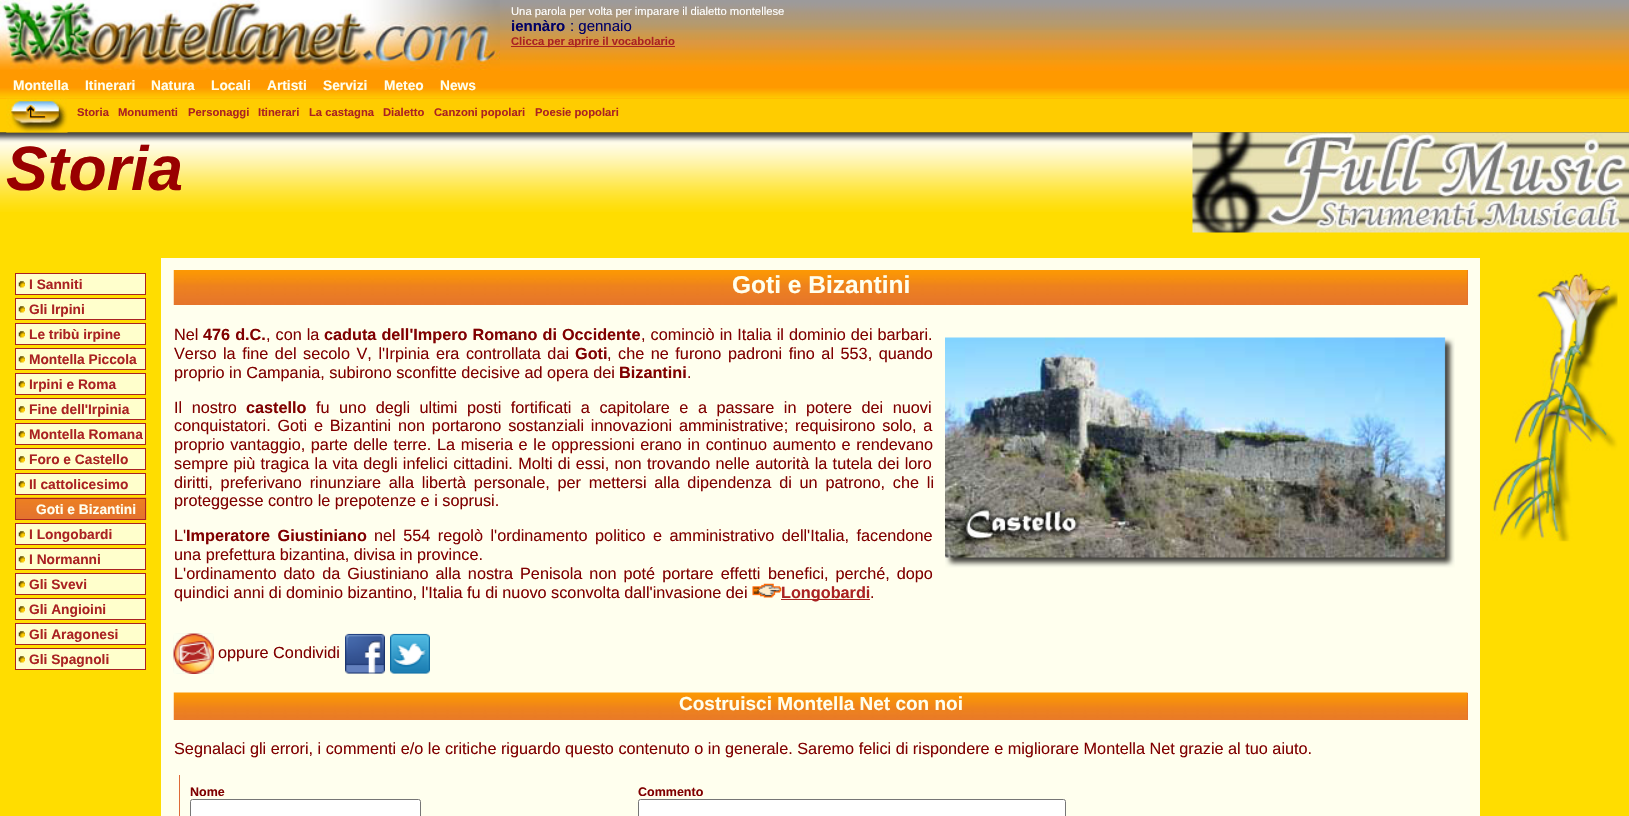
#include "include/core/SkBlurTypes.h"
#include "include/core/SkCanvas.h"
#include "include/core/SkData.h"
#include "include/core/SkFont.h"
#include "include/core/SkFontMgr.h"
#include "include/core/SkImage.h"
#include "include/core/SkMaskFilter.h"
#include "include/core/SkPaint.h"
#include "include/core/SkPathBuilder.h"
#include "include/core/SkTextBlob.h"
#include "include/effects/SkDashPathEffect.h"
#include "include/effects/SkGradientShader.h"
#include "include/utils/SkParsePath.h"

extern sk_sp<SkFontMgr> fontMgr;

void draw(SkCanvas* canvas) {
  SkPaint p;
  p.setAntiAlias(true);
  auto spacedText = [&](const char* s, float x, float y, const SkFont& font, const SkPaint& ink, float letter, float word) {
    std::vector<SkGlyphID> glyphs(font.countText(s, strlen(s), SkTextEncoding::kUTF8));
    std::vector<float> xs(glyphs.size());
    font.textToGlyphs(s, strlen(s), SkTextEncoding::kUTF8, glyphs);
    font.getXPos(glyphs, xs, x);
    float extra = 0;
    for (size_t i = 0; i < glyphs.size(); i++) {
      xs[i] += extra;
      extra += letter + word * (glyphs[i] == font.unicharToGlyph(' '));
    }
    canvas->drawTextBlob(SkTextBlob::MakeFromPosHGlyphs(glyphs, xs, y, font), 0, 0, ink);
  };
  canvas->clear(SkColorSetRGB(255, 255, 238));
  p.setColor(SkColorSetRGB(255, 153, 0));
  canvas->drawRect(SkRect::MakeLTRB(0, 70, 500, 71), p);
  canvas->drawImageRect(SkImages::DeferredFromEncodedData(SkData::MakeFromFileName("images/1.png")), SkRect::MakeLTRB(0, 0, 500, 70), SkSamplingOptions());
  canvas->drawImageRect(SkImages::DeferredFromEncodedData(SkData::MakeFromFileName("images/2.png")), SkRect::MakeLTRB(500, 0, 1629, 71), SkSamplingOptions());
  p.setColor(SkColorSetRGB(170, 34, 34));
  canvas->drawRect(SkRect::MakeLTRB(511, 46, 675, 47), p);
  p.setColor(SkColorSetRGB(255, 153, 0));
  canvas->drawRect(SkRect::MakeLTRB(0, 71, 1629, 99), p);
  canvas->drawImageRect(SkImages::DeferredFromEncodedData(SkData::MakeFromFileName("images/3.png")), SkRect::MakeLTRB(0, 88, 1629, 99), SkSamplingOptions());
  p.setColor(SkColorSetRGB(255, 204, 0));
  canvas->drawRect(SkRect::MakeLTRB(0, 99, 1629, 133), p);
  canvas->drawImageRect(SkImages::DeferredFromEncodedData(SkData::MakeFromFileName("images/5.png")), SkRect::MakeLTRB(0, 132, 1629, 133), SkSamplingOptions());
  canvas->drawImageRect(SkImages::DeferredFromEncodedData(SkData::MakeFromFileName("images/6.png")), SkRect::MakeLTRB(0, 132, 1629, 212), SkSamplingOptions());
  canvas->drawImageRect(SkImages::DeferredFromEncodedData(SkData::MakeFromFileName("images/4.png")), SkRect::MakeLTRB(6, 98, 68, 133), SkSamplingOptions());
  p.setColor(SkColorSetRGB(255, 221, 0));
  canvas->drawRect(SkRect::MakeLTRB(0, 212, 1629, 258), p);
  canvas->drawImageRect(SkImages::DeferredFromEncodedData(SkData::MakeFromFileName("images/7.png")), SkRect::MakeLTRB(1192, 132, 1629, 233), SkSamplingOptions());
  canvas->drawRect(SkRect::MakeLTRB(0, 258, 161, 816), p);
  p.setColor(SkColorSetRGB(255, 255, 204));
  canvas->drawRect(SkRect::MakeLTRB(16, 274, 145, 294), p);
  canvas->drawImageRect(SkImages::DeferredFromEncodedData(SkData::MakeFromFileName("images/8.png")), SkRect::MakeLTRB(18, 281, 25, 288), SkSamplingOptions());
  p.setStyle(SkPaint::kStroke_Style);
  p.setStrokeWidth(1);
  p.setColor(SkColorSetRGB(170, 34, 34));
  canvas->drawRect(SkRect::MakeLTRB(15.5f, 273.5f, 145.5f, 294.5f), p);
  p.setStyle(SkPaint::kFill_Style);
  p.setColor(SkColorSetRGB(255, 255, 204));
  canvas->drawRect(SkRect::MakeLTRB(16, 299, 145, 319), p);
  canvas->drawImageRect(SkImages::DeferredFromEncodedData(SkData::MakeFromFileName("images/8.png")), SkRect::MakeLTRB(18, 306, 25, 313), SkSamplingOptions());
  p.setStyle(SkPaint::kStroke_Style);
  p.setColor(SkColorSetRGB(170, 34, 34));
  canvas->drawRect(SkRect::MakeLTRB(15.5f, 298.5f, 145.5f, 319.5f), p);
  p.setStyle(SkPaint::kFill_Style);
  p.setColor(SkColorSetRGB(255, 255, 204));
  canvas->drawRect(SkRect::MakeLTRB(16, 324, 145, 344), p);
  canvas->drawImageRect(SkImages::DeferredFromEncodedData(SkData::MakeFromFileName("images/8.png")), SkRect::MakeLTRB(18, 331, 25, 338), SkSamplingOptions());
  p.setStyle(SkPaint::kStroke_Style);
  p.setColor(SkColorSetRGB(170, 34, 34));
  canvas->drawRect(SkRect::MakeLTRB(15.5f, 323.5f, 145.5f, 344.5f), p);
  p.setStyle(SkPaint::kFill_Style);
  p.setColor(SkColorSetRGB(255, 255, 204));
  canvas->drawRect(SkRect::MakeLTRB(16, 349, 145, 369), p);
  canvas->drawImageRect(SkImages::DeferredFromEncodedData(SkData::MakeFromFileName("images/8.png")), SkRect::MakeLTRB(18, 356, 25, 363), SkSamplingOptions());
  p.setStyle(SkPaint::kStroke_Style);
  p.setColor(SkColorSetRGB(170, 34, 34));
  canvas->drawRect(SkRect::MakeLTRB(15.5f, 348.5f, 145.5f, 369.5f), p);
  p.setStyle(SkPaint::kFill_Style);
  p.setColor(SkColorSetRGB(255, 255, 204));
  canvas->drawRect(SkRect::MakeLTRB(16, 374, 145, 394), p);
  canvas->drawImageRect(SkImages::DeferredFromEncodedData(SkData::MakeFromFileName("images/8.png")), SkRect::MakeLTRB(18, 381, 25, 388), SkSamplingOptions());
  p.setStyle(SkPaint::kStroke_Style);
  p.setColor(SkColorSetRGB(170, 34, 34));
  canvas->drawRect(SkRect::MakeLTRB(15.5f, 373.5f, 145.5f, 394.5f), p);
  p.setStyle(SkPaint::kFill_Style);
  p.setColor(SkColorSetRGB(255, 255, 204));
  canvas->drawRect(SkRect::MakeLTRB(16, 399, 145, 419), p);
  canvas->drawImageRect(SkImages::DeferredFromEncodedData(SkData::MakeFromFileName("images/8.png")), SkRect::MakeLTRB(18, 406, 25, 413), SkSamplingOptions());
  p.setStyle(SkPaint::kStroke_Style);
  p.setColor(SkColorSetRGB(170, 34, 34));
  canvas->drawRect(SkRect::MakeLTRB(15.5f, 398.5f, 145.5f, 419.5f), p);
  p.setStyle(SkPaint::kFill_Style);
  p.setColor(SkColorSetRGB(255, 255, 204));
  canvas->drawRect(SkRect::MakeLTRB(16, 424, 145, 444), p);
  canvas->drawImageRect(SkImages::DeferredFromEncodedData(SkData::MakeFromFileName("images/8.png")), SkRect::MakeLTRB(18, 431, 25, 438), SkSamplingOptions());
  p.setStyle(SkPaint::kStroke_Style);
  p.setColor(SkColorSetRGB(170, 34, 34));
  canvas->drawRect(SkRect::MakeLTRB(15.5f, 423.5f, 145.5f, 444.5f), p);
  p.setStyle(SkPaint::kFill_Style);
  p.setColor(SkColorSetRGB(255, 255, 204));
  canvas->drawRect(SkRect::MakeLTRB(16, 449, 145, 469), p);
  canvas->drawImageRect(SkImages::DeferredFromEncodedData(SkData::MakeFromFileName("images/8.png")), SkRect::MakeLTRB(18, 456, 25, 463), SkSamplingOptions());
  p.setStyle(SkPaint::kStroke_Style);
  p.setColor(SkColorSetRGB(170, 34, 34));
  canvas->drawRect(SkRect::MakeLTRB(15.5f, 448.5f, 145.5f, 469.5f), p);
  p.setStyle(SkPaint::kFill_Style);
  p.setColor(SkColorSetRGB(255, 255, 204));
  canvas->drawRect(SkRect::MakeLTRB(16, 474, 145, 494), p);
  canvas->drawImageRect(SkImages::DeferredFromEncodedData(SkData::MakeFromFileName("images/8.png")), SkRect::MakeLTRB(18, 481, 25, 488), SkSamplingOptions());
  p.setStyle(SkPaint::kStroke_Style);
  p.setColor(SkColorSetRGB(170, 34, 34));
  canvas->drawRect(SkRect::MakeLTRB(15.5f, 473.5f, 145.5f, 494.5f), p);
  canvas->drawImageRect(SkImages::DeferredFromEncodedData(SkData::MakeFromFileName("images/9.png")), SkRect::MakeLTRB(15, 497, 147, 520), SkSamplingOptions());
  canvas->drawRect(SkRect::MakeLTRB(15.5f, 498.5f, 145.5f, 519.5f), p);
  p.setStyle(SkPaint::kFill_Style);
  p.setColor(SkColorSetRGB(255, 255, 204));
  canvas->drawRect(SkRect::MakeLTRB(16, 524, 145, 544), p);
  canvas->drawImageRect(SkImages::DeferredFromEncodedData(SkData::MakeFromFileName("images/8.png")), SkRect::MakeLTRB(18, 531, 25, 538), SkSamplingOptions());
  p.setStyle(SkPaint::kStroke_Style);
  p.setColor(SkColorSetRGB(170, 34, 34));
  canvas->drawRect(SkRect::MakeLTRB(15.5f, 523.5f, 145.5f, 544.5f), p);
  p.setStyle(SkPaint::kFill_Style);
  p.setColor(SkColorSetRGB(255, 255, 204));
  canvas->drawRect(SkRect::MakeLTRB(16, 549, 145, 569), p);
  canvas->drawImageRect(SkImages::DeferredFromEncodedData(SkData::MakeFromFileName("images/8.png")), SkRect::MakeLTRB(18, 556, 25, 563), SkSamplingOptions());
  p.setStyle(SkPaint::kStroke_Style);
  p.setColor(SkColorSetRGB(170, 34, 34));
  canvas->drawRect(SkRect::MakeLTRB(15.5f, 548.5f, 145.5f, 569.5f), p);
  p.setStyle(SkPaint::kFill_Style);
  p.setColor(SkColorSetRGB(255, 255, 204));
  canvas->drawRect(SkRect::MakeLTRB(16, 574, 145, 594), p);
  canvas->drawImageRect(SkImages::DeferredFromEncodedData(SkData::MakeFromFileName("images/8.png")), SkRect::MakeLTRB(18, 581, 25, 588), SkSamplingOptions());
  p.setStyle(SkPaint::kStroke_Style);
  p.setColor(SkColorSetRGB(170, 34, 34));
  canvas->drawRect(SkRect::MakeLTRB(15.5f, 573.5f, 145.5f, 594.5f), p);
  p.setStyle(SkPaint::kFill_Style);
  p.setColor(SkColorSetRGB(255, 255, 204));
  canvas->drawRect(SkRect::MakeLTRB(16, 599, 145, 619), p);
  canvas->drawImageRect(SkImages::DeferredFromEncodedData(SkData::MakeFromFileName("images/8.png")), SkRect::MakeLTRB(18, 606, 25, 613), SkSamplingOptions());
  p.setStyle(SkPaint::kStroke_Style);
  p.setColor(SkColorSetRGB(170, 34, 34));
  canvas->drawRect(SkRect::MakeLTRB(15.5f, 598.5f, 145.5f, 619.5f), p);
  p.setStyle(SkPaint::kFill_Style);
  p.setColor(SkColorSetRGB(255, 255, 204));
  canvas->drawRect(SkRect::MakeLTRB(16, 624, 145, 644), p);
  canvas->drawImageRect(SkImages::DeferredFromEncodedData(SkData::MakeFromFileName("images/8.png")), SkRect::MakeLTRB(18, 631, 25, 638), SkSamplingOptions());
  p.setStyle(SkPaint::kStroke_Style);
  p.setColor(SkColorSetRGB(170, 34, 34));
  canvas->drawRect(SkRect::MakeLTRB(15.5f, 623.5f, 145.5f, 644.5f), p);
  p.setStyle(SkPaint::kFill_Style);
  p.setColor(SkColorSetRGB(255, 255, 204));
  canvas->drawRect(SkRect::MakeLTRB(16, 649, 145, 669), p);
  canvas->drawImageRect(SkImages::DeferredFromEncodedData(SkData::MakeFromFileName("images/8.png")), SkRect::MakeLTRB(18, 656, 25, 663), SkSamplingOptions());
  p.setStyle(SkPaint::kStroke_Style);
  p.setColor(SkColorSetRGB(170, 34, 34));
  canvas->drawRect(SkRect::MakeLTRB(15.5f, 648.5f, 145.5f, 669.5f), p);
  p.setStyle(SkPaint::kFill_Style);
  p.setColor(SkColorSetRGB(222, 106, 55));
  canvas->drawRect(SkRect::MakeLTRB(1467, 270, 1468, 305), p);
  canvas->drawImageRect(SkImages::DeferredFromEncodedData(SkData::MakeFromFileName("images/10.png")), SkRect::MakeLTRB(173, 270, 1468, 305), SkSamplingOptions());
  canvas->drawImageRect(SkImages::DeferredFromEncodedData(SkData::MakeFromFileName("images/11.png")), SkRect::MakeLTRB(945, 337, 1455, 568), SkSamplingOptions());
  canvas->drawImageRect(SkImages::DeferredFromEncodedData(SkData::MakeFromFileName("images/12.png")), SkRect::MakeLTRB(752, 583, 782, 598), SkSamplingOptions());
  p.setColor(SkColorSetRGB(170, 34, 34));
  canvas->drawRect(SkRect::MakeLTRB(781, 599, 870, 600), p);
  canvas->drawImageRect(SkImages::DeferredFromEncodedData(SkData::MakeFromFileName("images/13.png")), SkRect::MakeLTRB(173, 633, 214, 674), SkSamplingOptions());
  canvas->drawImageRect(SkImages::DeferredFromEncodedData(SkData::MakeFromFileName("images/14.png")), SkRect::MakeLTRB(173, 633, 214, 674), SkSamplingOptions());
  canvas->drawImageRect(SkImages::DeferredFromEncodedData(SkData::MakeFromFileName("images/15.png")), SkRect::MakeLTRB(345, 633, 385, 674), SkSamplingOptions());
  canvas->drawImageRect(SkImages::DeferredFromEncodedData(SkData::MakeFromFileName("images/16.png")), SkRect::MakeLTRB(390, 633, 430, 674), SkSamplingOptions());
  p.setColor(SkColorSetRGB(222, 106, 55));
  canvas->drawRect(SkRect::MakeLTRB(1467, 693, 1468, 720), p);
  canvas->drawImageRect(SkImages::DeferredFromEncodedData(SkData::MakeFromFileName("images/17.png")), SkRect::MakeLTRB(173, 692, 1468, 720), SkSamplingOptions());
  canvas->drawRect(SkRect::MakeLTRB(179, 775, 180, 816), p);
  p.setColor(SK_ColorWHITE);
  canvas->drawRoundRect(SkRect::MakeLTRB(190.5f, 799.5f, 420.5f, 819.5f), 2, 2, p);
  p.setStyle(SkPaint::kStroke_Style);
  p.setColor(SkColorSetRGB(118, 118, 118));
  canvas->drawRoundRect(SkRect::MakeLTRB(190.5f, 799.5f, 420.5f, 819.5f), 2, 2, p);
  p.setStyle(SkPaint::kFill_Style);
  p.setColor(SK_ColorWHITE);
  canvas->drawRoundRect(SkRect::MakeLTRB(638.5f, 799.5f, 1065.5f, 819.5f), 2, 2, p);
  p.setStyle(SkPaint::kStroke_Style);
  p.setColor(SkColorSetRGB(118, 118, 118));
  canvas->drawRoundRect(SkRect::MakeLTRB(638.5f, 799.5f, 1065.5f, 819.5f), 2, 2, p);
  p.setStyle(SkPaint::kFill_Style);
  p.setColor(SkColorSetRGB(255, 221, 0));
  canvas->drawRect(SkRect::MakeLTRB(1480, 258, 1629, 816), p);
  canvas->drawImageRect(SkImages::DeferredFromEncodedData(SkData::MakeFromFileName("images/18.png")), SkRect::MakeLTRB(1492, 270, 1618, 542), SkSamplingOptions());
  SkFont font1(fontMgr->matchFamilyStyle("Liberation Sans", SkFontStyle::Normal()), 11.25f);
  font1.setSubpixel(true);
  p.setColor(SK_ColorWHITE);
  canvas->drawString("Una parola per volta per imparare il dialetto montellese", 511, 15, font1, p);
  SkFont font2(fontMgr->matchFamilyStyle("Liberation Sans", SkFontStyle::Bold()), 15);
  font2.setSubpixel(true);
  p.setColor(SkColorSetRGB(0, 0, 102));
  canvas->drawString("iennàro", 511, 31, font2, p);
  SkFont font3(fontMgr->matchFamilyStyle("Liberation Sans", SkFontStyle::Normal()), 15);
  font3.setSubpixel(true);
  canvas->drawString(": gennaio", 570, 31, font3, p);
  SkFont font4(fontMgr->matchFamilyStyle("Liberation Sans", SkFontStyle::Bold()), 11.25f);
  font4.setSubpixel(true);
  p.setColor(SkColorSetRGB(170, 34, 34));
  canvas->drawString("Clicca per aprire il vocabolario", 511, 45, font4, p);
  SkFont font5(fontMgr->matchFamilyStyle("Liberation Sans", SkFontStyle::Bold()), 13.75f);
  font5.setSubpixel(true);
  p.setColor(SkColorSetRGB(255, 255, 238));
  canvas->drawString("Montella", 13, 90, font5, p);
  canvas->drawString("Itinerari", 85, 90, font5, p);
  canvas->drawString("Natura", 151, 90, font5, p);
  canvas->drawString("Locali", 211, 90, font5, p);
  canvas->drawString("Artisti", 267, 90, font5, p);
  canvas->drawString("Servizi", 323, 90, font5, p);
  canvas->drawString("Meteo", 384, 90, font5, p);
  canvas->drawString("News", 440, 90, font5, p);
  p.setColor(SkColorSetRGB(170, 34, 34));
  canvas->drawString("Storia", 77, 116, font4, p);
  canvas->drawString("Monumenti", 118, 116, font4, p);
  canvas->drawString("Personaggi", 188, 116, font4, p);
  canvas->drawString("Itinerari", 258, 116, font4, p);
  canvas->drawString("La castagna", 309, 116, font4, p);
  canvas->drawString("Dialetto", 383, 116, font4, p);
  canvas->drawString("Canzoni popolari", 434, 116, font4, p);
  canvas->drawString("Poesie popolari", 535, 116, font4, p);
  SkFont font6(fontMgr->matchFamilyStyle("Liberation Sans", SkFontStyle::BoldItalic()), 62.5f);
  font6.setSubpixel(true);
  p.setColor(SkColorSetRGB(153, 0, 0));
  canvas->drawString("Storia", 6, 190, font6, p);
  p.setColor(SkColorSetRGB(170, 34, 34));
  canvas->drawString("I Sanniti", 29, 289, font5, p);
  canvas->drawString("Gli Irpini", 29, 314, font5, p);
  canvas->drawString("Le tribù irpine", 29, 339, font5, p);
  canvas->drawString("Montella Piccola", 29, 364, font5, p);
  canvas->drawString("Irpini e Roma", 29, 389, font5, p);
  canvas->drawString("Fine dell'Irpinia", 29, 414, font5, p);
  canvas->drawString("Montella Romana", 29, 439, font5, p);
  canvas->drawString("Foro e Castello", 29, 464, font5, p);
  canvas->drawString("Il cattolicesimo", 29, 489, font5, p);
  p.setColor(SkColorSetRGB(255, 255, 238));
  canvas->drawString("Goti e Bizantini", 36, 514, font5, p);
  p.setColor(SkColorSetRGB(170, 34, 34));
  canvas->drawString("I Longobardi", 29, 539, font5, p);
  canvas->drawString("I Normanni", 29, 564, font5, p);
  canvas->drawString("Gli Svevi", 29, 589, font5, p);
  canvas->drawString("Gli Angioini", 29, 614, font5, p);
  canvas->drawString("Gli Aragonesi", 29, 639, font5, p);
  canvas->drawString("Gli Spagnoli", 29, 664, font5, p);
  SkFont font7(fontMgr->matchFamilyStyle("Liberation Sans", SkFontStyle::Bold()), 24.5f);
  font7.setSubpixel(true);
  p.setColor(SkColorSetRGB(255, 255, 238));
  canvas->drawString("Goti e Bizantini", 732, 293, font7, p);
  SkFont font8(fontMgr->matchFamilyStyle("Liberation Sans", SkFontStyle::Normal()), 16.25f);
  font8.setSubpixel(true);
  p.setColor(SkColorSetRGB(128, 0, 0));
  canvas->drawString("Nel", 174, 340, font8, p);
  SkFont font9(fontMgr->matchFamilyStyle("Liberation Sans", SkFontStyle::Bold()), 16.25f);
  font9.setSubpixel(true);
  spacedText("476 d.C.", 203, 340, font9, p, 0, 0.5f);
  spacedText(", con la", 266, 340, font8, p, 0, 0.5f);
  spacedText("caduta dell'Impero Romano di Occidente", 324, 340, font9, p, 0, 0.5f);
  spacedText(", cominciò in Italia il dominio dei barbari.", 641, 340, font8, p, 0, 0.5f);
  spacedText("Verso la fine del secolo V, l'Irpinia era controllata dai", 174, 359, font8, p, 0, 2);
  canvas->drawString("Goti", 575, 359, font9, p);
  spacedText(", che ne furono padroni fino al 553, quando", 607, 359, font8, p, 0, 2);
  canvas->drawString("proprio in Campania, subirono sconfitte decisive ad opera dei", 174, 378, font8, p);
  canvas->drawString("Bizantini", 619, 378, font9, p);
  canvas->drawString(".", 687, 378, font8, p);
  spacedText("Il nostro", 174, 413, font8, p, 0, 5);
  canvas->drawString("castello", 246, 413, font9, p);
  spacedText("fu uno degli ultimi posti fortificati a capitolare e a passare in potere dei nuovi", 316, 413, font8, p, 0, 5);
  spacedText("conquistatori. Goti e Bizantini non portarono sostanziali innovazioni amministrative;", 174, 431, font8, p, 0, 2.25f);
  spacedText("requisirono solo, a", 795, 431, font8, p, 0, 2.25f);
  spacedText("proprio vantaggio, parte delle terre. La miseria e le oppressioni erano in continuo aumento e rendevano", 174, 450, font8, p, 0, 1.1f);
  spacedText("sempre più tragica la vita degli infelici cittadini. Molti di essi, non trovando nelle autorità la tutela dei loro", 174, 469, font8, p, 0, 0.8f);
  spacedText("diritti, preferivano rinunziare alla libertà personale, per mettersi alla dipendenza di un patrono, che li", 174, 488, font8, p, 0, 3.25f);
  canvas->drawString("proteggesse contro le prepotenze e i soprusi.", 174, 506, font8, p);
  canvas->drawString("L'", 174, 541, font8, p);
  spacedText("Imperatore Giustiniano", 186, 541, font9, p, 0, 3);
  spacedText("nel 554 regolò l'ordinamento politico", 374, 541, font8, p, 0, 3);
  spacedText("e amministrativo dell'Italia, facendone", 653, 541, font8, p, 0, 3);
  canvas->drawString("una prefettura bizantina, divisa in province.", 174, 560, font8, p);
  spacedText("L'ordinamento dato da Giustiniano alla nostra Penisola non poté portare effetti", 174, 579, font8, p, 0, 2.5f);
  spacedText("benefici, perché, dopo", 768, 579, font8, p, 0, 2.5f);
  canvas->drawString("quindici anni di dominio bizantino, l'Italia fu di nuovo sconvolta dall'invasione dei", 174, 598, font8, p);
  p.setColor(SkColorSetRGB(170, 34, 34));
  canvas->drawString("Longobardi", 781, 598, font9, p);
  p.setColor(SkColorSetRGB(128, 0, 0));
  canvas->drawString(".", 870, 598, font8, p);
  canvas->drawString("oppure Condividi", 218, 658, font8, p);
  SkFont font10(fontMgr->matchFamilyStyle("Liberation Sans", SkFontStyle::Bold()), 19);
  font10.setSubpixel(true);
  p.setColor(SkColorSetRGB(255, 255, 238));
  canvas->drawString("Costruisci Montella Net con noi", 679, 710, font10, p);
  p.setColor(SkColorSetRGB(128, 0, 0));
  canvas->drawString("Segnalaci gli errori, i commenti e/o le critiche riguardo questo contenuto o in generale. Saremo felici di rispondere e migliorare Montella Net grazie al tuo aiuto.", 174, 754, font8, p);
  SkFont font11(fontMgr->matchFamilyStyle("Liberation Sans", SkFontStyle::Bold()), 12.5f);
  font11.setSubpixel(true);
  canvas->drawString("Nome", 190, 796, font11, p);
  canvas->drawString("Commento", 638, 796, font11, p);
}
